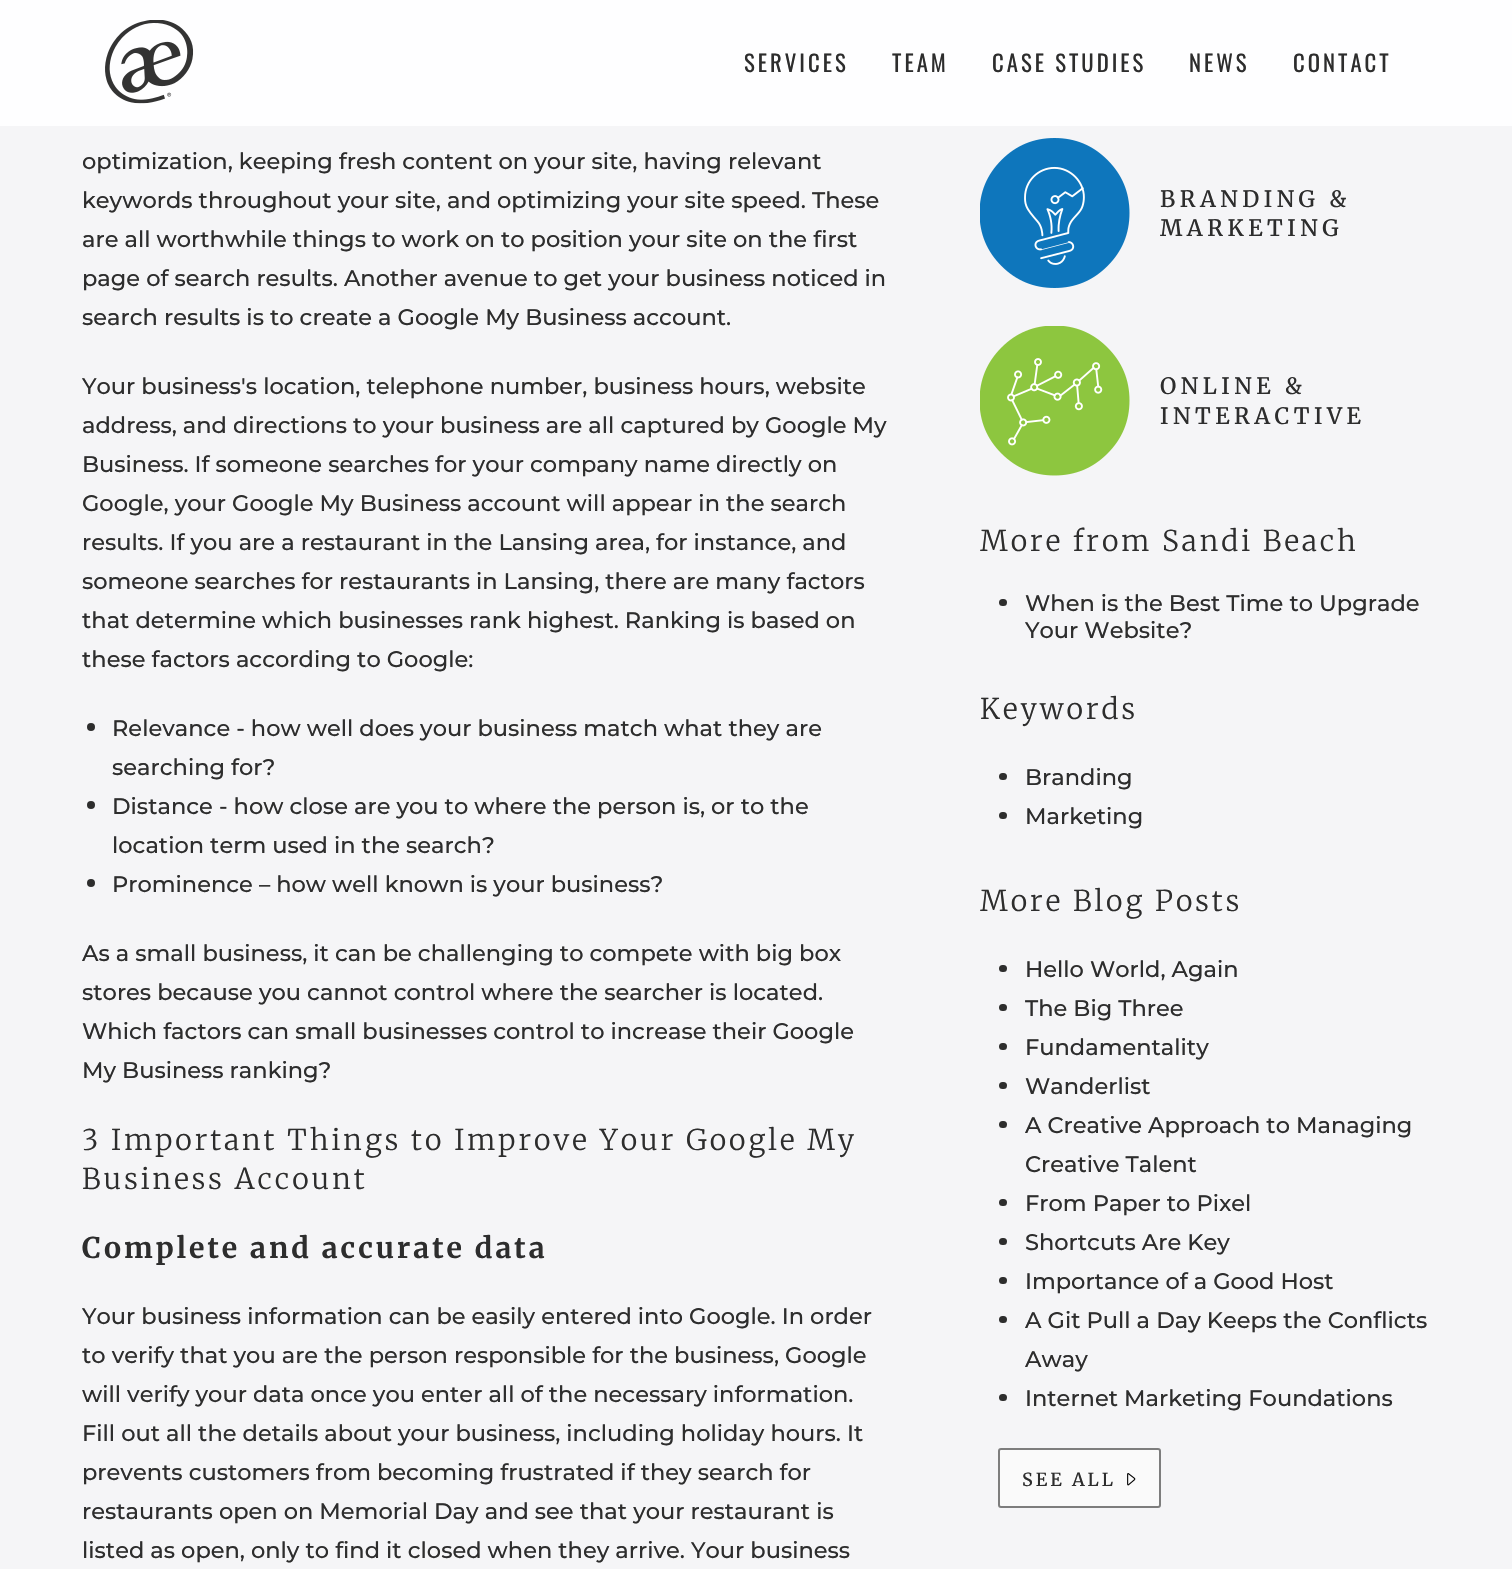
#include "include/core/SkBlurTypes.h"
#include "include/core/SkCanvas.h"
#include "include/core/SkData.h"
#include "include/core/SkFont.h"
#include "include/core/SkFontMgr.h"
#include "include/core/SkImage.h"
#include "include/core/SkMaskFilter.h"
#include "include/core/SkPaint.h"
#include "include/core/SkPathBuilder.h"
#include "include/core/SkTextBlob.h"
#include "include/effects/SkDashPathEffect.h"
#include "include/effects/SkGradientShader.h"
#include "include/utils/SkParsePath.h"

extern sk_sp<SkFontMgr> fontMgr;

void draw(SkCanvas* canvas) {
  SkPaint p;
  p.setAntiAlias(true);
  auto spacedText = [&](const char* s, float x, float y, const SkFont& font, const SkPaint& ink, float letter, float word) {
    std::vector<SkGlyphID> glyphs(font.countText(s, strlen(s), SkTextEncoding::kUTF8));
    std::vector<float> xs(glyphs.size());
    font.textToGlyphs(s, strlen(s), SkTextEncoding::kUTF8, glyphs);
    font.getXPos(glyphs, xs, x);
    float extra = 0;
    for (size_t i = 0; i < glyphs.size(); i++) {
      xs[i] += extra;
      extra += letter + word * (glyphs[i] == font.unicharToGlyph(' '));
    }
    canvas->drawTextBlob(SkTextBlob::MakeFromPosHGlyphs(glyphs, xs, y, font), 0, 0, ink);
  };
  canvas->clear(SkColorSetRGB(245, 245, 247));
  p.setColor(SkColorSetARGB(230, 255, 255, 255));
  canvas->drawRect(SkRect::MakeLTRB(0, 0, 1512, 126), p);
  canvas->drawImageRect(SkImages::DeferredFromEncodedData(SkData::MakeFromFileName("images/1.png")), SkRect::MakeLTRB(105, 20, 194, 104), SkSamplingOptions());
  p.setColor(SkColorSetRGB(45, 45, 45));
  canvas->drawCircle(91, 727, 4, p);
  canvas->drawCircle(91, 805, 4, p);
  canvas->drawCircle(91, 883, 4, p);
  canvas->drawImageRect(SkImages::DeferredFromEncodedData(SkData::MakeFromFileName("images/2.png")), SkRect::MakeLTRB(980, 138, 1130, 288), SkSamplingOptions());
  canvas->drawImageRect(SkImages::DeferredFromEncodedData(SkData::MakeFromFileName("images/3.png")), SkRect::MakeLTRB(980, 326, 1130, 476), SkSamplingOptions());
  canvas->drawRoundRect(SkRect::MakeLTRB(999, 599, 1007, 606), 3.5f, 3.5f, p);
  canvas->drawRoundRect(SkRect::MakeLTRB(999, 773, 1007, 780), 3.5f, 3.5f, p);
  canvas->drawRoundRect(SkRect::MakeLTRB(999, 812, 1007, 819), 3.5f, 3.5f, p);
  canvas->drawRoundRect(SkRect::MakeLTRB(999, 965, 1007, 972), 3.5f, 3.5f, p);
  canvas->drawRoundRect(SkRect::MakeLTRB(999, 1004, 1007, 1011), 3.5f, 3.5f, p);
  canvas->drawRoundRect(SkRect::MakeLTRB(999, 1043, 1007, 1050), 3.5f, 3.5f, p);
  canvas->drawRoundRect(SkRect::MakeLTRB(999, 1082, 1007, 1089), 3.5f, 3.5f, p);
  canvas->drawRoundRect(SkRect::MakeLTRB(999, 1121, 1007, 1128), 3.5f, 3.5f, p);
  canvas->drawRoundRect(SkRect::MakeLTRB(999, 1199, 1007, 1206), 3.5f, 3.5f, p);
  canvas->drawRoundRect(SkRect::MakeLTRB(999, 1238, 1007, 1245), 3.5f, 3.5f, p);
  canvas->drawRoundRect(SkRect::MakeLTRB(999, 1277, 1007, 1284), 3.5f, 3.5f, p);
  canvas->drawRoundRect(SkRect::MakeLTRB(999, 1316, 1007, 1323), 3.5f, 3.5f, p);
  canvas->drawRoundRect(SkRect::MakeLTRB(999, 1394, 1007, 1401), 3.5f, 3.5f, p);
  p.setColor(SkColorSetRGB(250, 250, 250));
  canvas->drawRoundRect(SkRect::MakeLTRB(999, 1449, 1160, 1507), 2, 2, p);
  p.setStyle(SkPaint::kStroke_Style);
  p.setStrokeWidth(2);
  p.setColor(SkColorSetRGB(125, 125, 125));
  canvas->drawRoundRect(SkRect::MakeLTRB(999, 1449, 1160, 1507), 2, 2, p);
  canvas->drawImageRect(SkImages::DeferredFromEncodedData(SkData::MakeFromFileName("images/4.png")), SkRect::MakeLTRB(1127, 1473, 1136, 1486), SkSamplingOptions());
  SkFont font1(fontMgr->matchFamilyStyle("Oswald", SkFontStyle::Normal()), 22.75f);
  font1.setSubpixel(true);
  p.setStyle(SkPaint::kFill_Style);
  p.setColor(SkColorSetRGB(45, 45, 45));
  spacedText("SERVICES", 744, 72, font1, p, 3, 0);
  spacedText("TEAM", 892, 72, font1, p, 3, 0);
  spacedText("CASE STUDIES", 992, 72, font1, p, 3, 0);
  spacedText("NEWS", 1189, 72, font1, p, 3, 0);
  spacedText("CONTACT", 1293, 72, font1, p, 3, 0);
  SkFont font2(fontMgr->matchFamilyStyle("Montserrat", SkFontStyle(500, SkFontStyle::kNormal_Width, SkFontStyle::kUpright_Slant)), 22.5f);
  font2.setSubpixel(true);
  canvas->drawString("optimization, keeping fresh content on your site, having relevant", 82, 169, font2, p);
  canvas->drawString("keywords throughout your site, and optimizing your site speed. These", 82, 208, font2, p);
  canvas->drawString("are all worthwhile things to work on to position your site on the first", 82, 247, font2, p);
  canvas->drawString("page of search results. Another avenue to get your business noticed in", 82, 286, font2, p);
  canvas->drawString("search results is to create a Google My Business account.", 82, 325, font2, p);
  canvas->drawString("Your business's location, telephone number, business hours, website", 82, 394, font2, p);
  canvas->drawString("address, and directions to your business are all captured by Google My", 82, 433, font2, p);
  canvas->drawString("Business. If someone searches for your company name directly on", 82, 472, font2, p);
  canvas->drawString("Google, your Google My Business account will appear in the search", 82, 511, font2, p);
  canvas->drawString("results. If you are a restaurant in the Lansing area, for instance, and", 82, 550, font2, p);
  canvas->drawString("someone searches for restaurants in Lansing, there are many factors", 82, 589, font2, p);
  canvas->drawString("that determine which businesses rank highest. Ranking is based on", 82, 628, font2, p);
  canvas->drawString("these factors according to Google:", 82, 667, font2, p);
  canvas->drawString("Relevance - how well does your business match what they are", 112, 736, font2, p);
  canvas->drawString("searching for?", 112, 775, font2, p);
  canvas->drawString("Distance - how close are you to where the person is, or to the", 112, 814, font2, p);
  canvas->drawString("location term used in the search?", 112, 853, font2, p);
  canvas->drawString("Prominence – how well known is your business?", 112, 892, font2, p);
  canvas->drawString("As a small business, it can be challenging to compete with big box", 82, 961, font2, p);
  canvas->drawString("stores because you cannot control where the searcher is located.", 82, 1000, font2, p);
  canvas->drawString("Which factors can small businesses control to increase their Google", 82, 1039, font2, p);
  canvas->drawString("My Business ranking?", 82, 1078, font2, p);
  SkFont font3(fontMgr->matchFamilyStyle("Merriweather", SkFontStyle(300, SkFontStyle::kNormal_Width, SkFontStyle::kUpright_Slant)), 28.5f);
  font3.setSubpixel(true);
  spacedText("3 Important Things to Improve Your Google My", 82, 1150, font3, p, 3, 0);
  spacedText("Business Account", 82, 1189, font3, p, 3, 0);
  SkFont font4(fontMgr->matchFamilyStyle("Merriweather", SkFontStyle::Bold()), 28.5f);
  font4.setSubpixel(true);
  spacedText("Complete and accurate data", 82, 1258, font4, p, 3, 0);
  canvas->drawString("Your business information can be easily entered into Google. In order", 82, 1324, font2, p);
  canvas->drawString("to verify that you are the person responsible for the business, Google", 82, 1363, font2, p);
  canvas->drawString("will verify your data once you enter all of the necessary information.", 82, 1402, font2, p);
  canvas->drawString("Fill out all the details about your business, including holiday hours. It", 82, 1441, font2, p);
  canvas->drawString("prevents customers from becoming frustrated if they search for", 82, 1480, font2, p);
  canvas->drawString("restaurants open on Memorial Day and see that your restaurant is", 82, 1519, font2, p);
  canvas->drawString("listed as open, only to find it closed when they arrive. Your business", 82, 1558, font2, p);
  SkFont font5(fontMgr->matchFamilyStyle("Merriweather", SkFontStyle(500, SkFontStyle::kNormal_Width, SkFontStyle::kUpright_Slant)), 22.5f);
  font5.setSubpixel(true);
  spacedText("BRANDING &", 1160, 207, font5, p, 4.5f, 0);
  spacedText("MARKETING", 1160, 236, font5, p, 4.5f, 0);
  spacedText("ONLINE &", 1160, 394, font5, p, 4.5f, 0);
  spacedText("INTERACTIVE", 1160, 424, font5, p, 4.5f, 0);
  spacedText("More from Sandi Beach", 980, 551, font3, p, 3, 0);
  canvas->drawString("When is the Best Time to Upgrade", 1025, 611, font2, p);
  canvas->drawString("Your Website?", 1025, 638, font2, p);
  spacedText("Keywords", 980, 719, font3, p, 3, 0);
  canvas->drawString("Branding", 1025, 785, font2, p);
  canvas->drawString("Marketing", 1025, 824, font2, p);
  spacedText("More Blog Posts", 980, 911, font3, p, 3, 0);
  canvas->drawString("Hello World, Again", 1025, 977, font2, p);
  canvas->drawString("The Big Three", 1025, 1016, font2, p);
  canvas->drawString("Fundamentality", 1025, 1055, font2, p);
  canvas->drawString("Wanderlist", 1025, 1094, font2, p);
  canvas->drawString("A Creative Approach to Managing", 1025, 1133, font2, p);
  canvas->drawString("Creative Talent", 1025, 1172, font2, p);
  canvas->drawString("From Paper to Pixel", 1025, 1211, font2, p);
  canvas->drawString("Shortcuts Are Key", 1025, 1250, font2, p);
  canvas->drawString("Importance of a Good Host", 1025, 1289, font2, p);
  canvas->drawString("A Git Pull a Day Keeps the Conflicts", 1025, 1328, font2, p);
  canvas->drawString("Away", 1025, 1367, font2, p);
  canvas->drawString("Internet Marketing Foundations", 1025, 1406, font2, p);
  SkFont font6(fontMgr->matchFamilyStyle("Merriweather", SkFontStyle(500, SkFontStyle::kNormal_Width, SkFontStyle::kUpright_Slant)), 18);
  font6.setSubpixel(true);
  spacedText("SEE ALL", 1022, 1486, font6, p, 3, 0);
}
